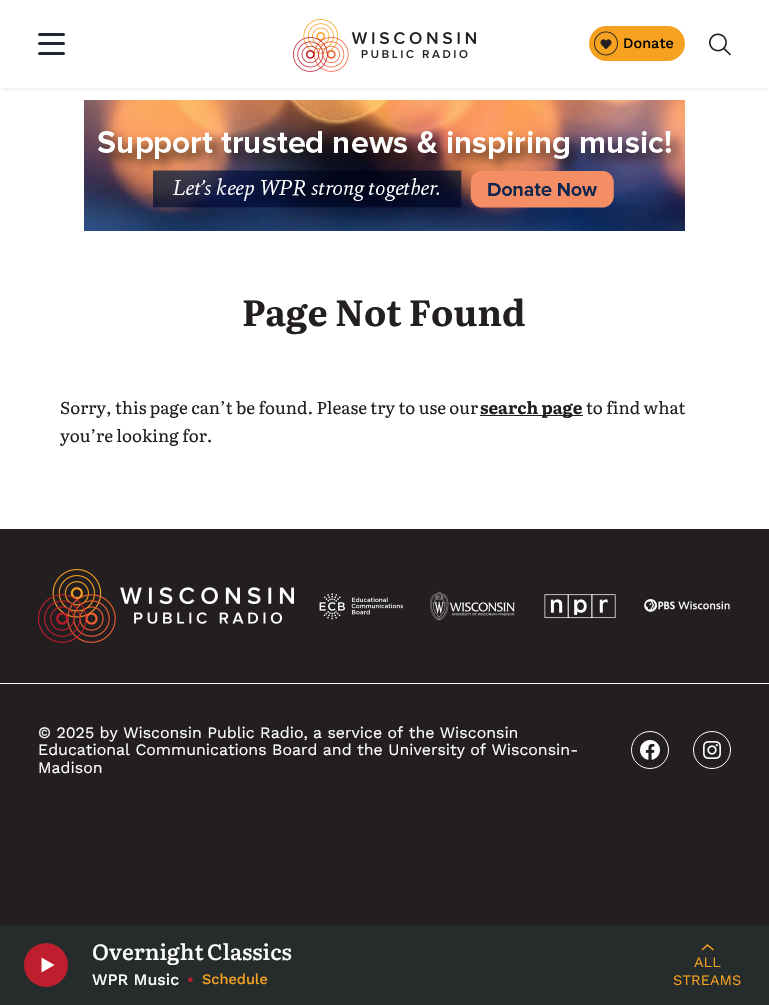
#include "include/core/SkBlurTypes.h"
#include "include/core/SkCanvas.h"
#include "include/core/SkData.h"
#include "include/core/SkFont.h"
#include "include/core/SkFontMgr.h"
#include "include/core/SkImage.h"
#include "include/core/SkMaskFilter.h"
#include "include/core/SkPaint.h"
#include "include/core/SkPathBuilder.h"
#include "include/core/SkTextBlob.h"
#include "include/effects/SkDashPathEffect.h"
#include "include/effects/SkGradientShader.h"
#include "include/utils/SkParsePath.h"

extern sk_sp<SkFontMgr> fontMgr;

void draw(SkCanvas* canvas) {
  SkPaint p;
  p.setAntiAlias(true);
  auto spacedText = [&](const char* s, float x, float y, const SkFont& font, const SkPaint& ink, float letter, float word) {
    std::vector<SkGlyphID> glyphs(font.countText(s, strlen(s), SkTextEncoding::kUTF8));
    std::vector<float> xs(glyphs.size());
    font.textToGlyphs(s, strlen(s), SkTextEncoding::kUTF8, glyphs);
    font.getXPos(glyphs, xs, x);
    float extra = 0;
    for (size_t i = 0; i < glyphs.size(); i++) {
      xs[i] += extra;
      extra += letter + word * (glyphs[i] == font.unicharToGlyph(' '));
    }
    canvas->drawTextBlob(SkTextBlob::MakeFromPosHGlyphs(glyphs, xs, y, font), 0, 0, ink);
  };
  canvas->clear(SkColorSetRGB(35, 31, 32));
  p.setColor(SK_ColorWHITE);
  canvas->drawRect(SkRect::MakeLTRB(0, 0, 769, 529), p);
  canvas->save();
  canvas->clipRect(SkRect::MakeLTRB(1, 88, 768, 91));
  p.setColor(SkColorSetARGB(20, 24, 39, 75));
  p.setMaskFilter(SkMaskFilter::MakeBlur(kNormal_SkBlurStyle, 2));
  canvas->drawRect(SkRect::MakeLTRB(2, 6, 767, 90), p);
  p.setMaskFilter(nullptr);
  canvas->restore();
  p.setColor(SkColorSetRGB(32, 38, 47));
  canvas->drawRoundRect(SkRect::MakeLTRB(38, 33, 65, 36), 1.5f, 1.5f, p);
  canvas->drawRoundRect(SkRect::MakeLTRB(38, 42, 65, 45), 1.5f, 1.5f, p);
  canvas->drawRoundRect(SkRect::MakeLTRB(38, 52, 65, 55), 1.5f, 1.5f, p);
  canvas->drawImageRect(SkImages::DeferredFromEncodedData(SkData::MakeFromFileName("images/1.png")), SkRect::MakeLTRB(293, 19, 476, 72), SkSamplingOptions());
  p.setColor(SkColorSetRGB(246, 161, 32));
  canvas->drawRoundRect(SkRect::MakeLTRB(589, 26, 685, 61), 17.5f, 17.5f, p);
  canvas->drawImageRect(SkImages::DeferredFromEncodedData(SkData::MakeFromFileName("images/2.png")), SkRect::MakeLTRB(594, 31, 618, 56), SkSamplingOptions());
  canvas->drawImageRect(SkImages::DeferredFromEncodedData(SkData::MakeFromFileName("images/3.png")), SkRect::MakeLTRB(709, 33, 731, 56), SkSamplingOptions());
  canvas->drawImageRect(SkImages::DeferredFromEncodedData(SkData::MakeFromFileName("images/4.png")), SkRect::MakeLTRB(84, 100, 685, 231), SkSamplingOptions());
  p.setColor(SkColorSetRGB(35, 31, 32));
  canvas->drawRect(SkRect::MakeLTRB(480, 415, 583, 416), p);
  p.setColor(SK_ColorWHITE);
  canvas->drawRect(SkRect::MakeLTRB(0, 683, 769, 684), p);
  canvas->drawImageRect(SkImages::DeferredFromEncodedData(SkData::MakeFromFileName("images/5.png")), SkRect::MakeLTRB(38, 569, 294, 643), SkSamplingOptions());
  canvas->drawImageRect(SkImages::DeferredFromEncodedData(SkData::MakeFromFileName("images/6.png")), SkRect::MakeLTRB(319, 593, 403, 620), SkSamplingOptions());
  canvas->drawImageRect(SkImages::DeferredFromEncodedData(SkData::MakeFromFileName("images/7.png")), SkRect::MakeLTRB(430, 591, 515, 621), SkSamplingOptions());
  canvas->drawImageRect(SkImages::DeferredFromEncodedData(SkData::MakeFromFileName("images/8.png")), SkRect::MakeLTRB(544, 594, 616, 619), SkSamplingOptions());
  canvas->drawImageRect(SkImages::DeferredFromEncodedData(SkData::MakeFromFileName("images/9.png")), SkRect::MakeLTRB(644, 599, 730, 612), SkSamplingOptions());
  p.setStyle(SkPaint::kStroke_Style);
  p.setStrokeWidth(1);
  canvas->drawCircle(650, 750, 18.5f, p);
  canvas->drawImageRect(SkImages::DeferredFromEncodedData(SkData::MakeFromFileName("images/10.png")), SkRect::MakeLTRB(640, 740, 660, 760), SkSamplingOptions());
  canvas->drawCircle(712, 750, 18.5f, p);
  canvas->drawImageRect(SkImages::DeferredFromEncodedData(SkData::MakeFromFileName("images/11.png")), SkRect::MakeLTRB(703, 741, 721, 759), SkSamplingOptions());
  p.setStyle(SkPaint::kFill_Style);
  p.setColor(SkColorSetRGB(38, 44, 44));
  canvas->drawRect(SkRect::MakeLTRB(0, 925, 769, 1005), p);
  p.setColor(SkColorSetRGB(190, 30, 45));
  canvas->drawCircle(46, 965, 22, p);
  p.setColor(SK_ColorWHITE);
  canvas->drawPath(SkPathBuilder().moveTo(41.5f, 957.5f).lineTo(41.5f, 972.5f).lineTo(54.5f, 965).close().detach(), p);
  p.setStyle(SkPaint::kStroke_Style);
  p.setStrokeWidth(1.5f);
  p.setColor(SkColorSetRGB(246, 161, 32));
  canvas->drawPath(SkPathBuilder().moveTo(713.5f, 950).lineTo(707.5f, 945).lineTo(702, 950).detach(), p);
  SkFont font1(fontMgr->matchFamilyStyle("Work Sans", SkFontStyle(500, SkFontStyle::kNormal_Width, SkFontStyle::kUpright_Slant)), 14.5f);
  font1.setSubpixel(true);
  p.setStyle(SkPaint::kFill_Style);
  p.setColor(SK_ColorBLACK);
  canvas->drawString("Donate", 623, 48, font1, p);
  SkFont font2(fontMgr->matchFamilyStyle("Literata", SkFontStyle::Bold()), 35.75f);
  font2.setSubpixel(true);
  p.setColor(SkColorSetRGB(35, 31, 32));
  canvas->drawString("Page Not Found", 242, 326, font2, p);
  SkFont font3(fontMgr->matchFamilyStyle("Literata", SkFontStyle::Normal()), 17);
  font3.setSubpixel(true);
  canvas->drawString("Sorry, this page can’t be found. Please try to use our", 60, 414, font3, p);
  SkFont font4(fontMgr->matchFamilyStyle("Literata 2", SkFontStyle::Bold()), 17);
  font4.setSubpixel(true);
  canvas->drawString("search page", 480, 414, font4, p);
  canvas->drawString("to find what", 586, 414, font3, p);
  canvas->drawString("you’re looking for.", 60, 442, font3, p);
  SkFont font5(fontMgr->matchFamilyStyle("Work Sans", SkFontStyle::Normal()), 15.9f);
  font5.setSubpixel(true);
  p.setColor(SK_ColorWHITE);
  canvas->drawString("© 2025 by Wisconsin Public Radio, a service of the Wisconsin", 38, 738, font5, p);
  canvas->drawString("Educational Communications Board and the University of Wisconsin-", 38, 755, font5, p);
  canvas->drawString("Madison", 38, 773, font5, p);
  SkFont font6(fontMgr->matchFamilyStyle("Literata", SkFontStyle(500, SkFontStyle::kNormal_Width, SkFontStyle::kUpright_Slant)), 22);
  font6.setSubpixel(true);
  spacedText("Overnight Classics", 92, 960, font6, p, 0, -1);
  SkFont font7(fontMgr->matchFamilyStyle("Work Sans", SkFontStyle(500, SkFontStyle::kNormal_Width, SkFontStyle::kUpright_Slant)), 16);
  font7.setSubpixel(true);
  canvas->drawString("WPR Music", 92, 985, font7, p);
  p.setColor(SkColorSetRGB(190, 30, 45));
  canvas->drawString("•", 187, 985, font7, p);
  p.setColor(SkColorSetRGB(246, 161, 32));
  canvas->drawString("Schedule", 202, 984, font1, p);
  SkFont font8(fontMgr->matchFamilyStyle("Work Sans", SkFontStyle::Normal()), 14.5f);
  font8.setSubpixel(true);
  canvas->drawString("ALL", 694, 967, font8, p);
  canvas->drawString("STREAMS", 673, 985, font8, p);
}
